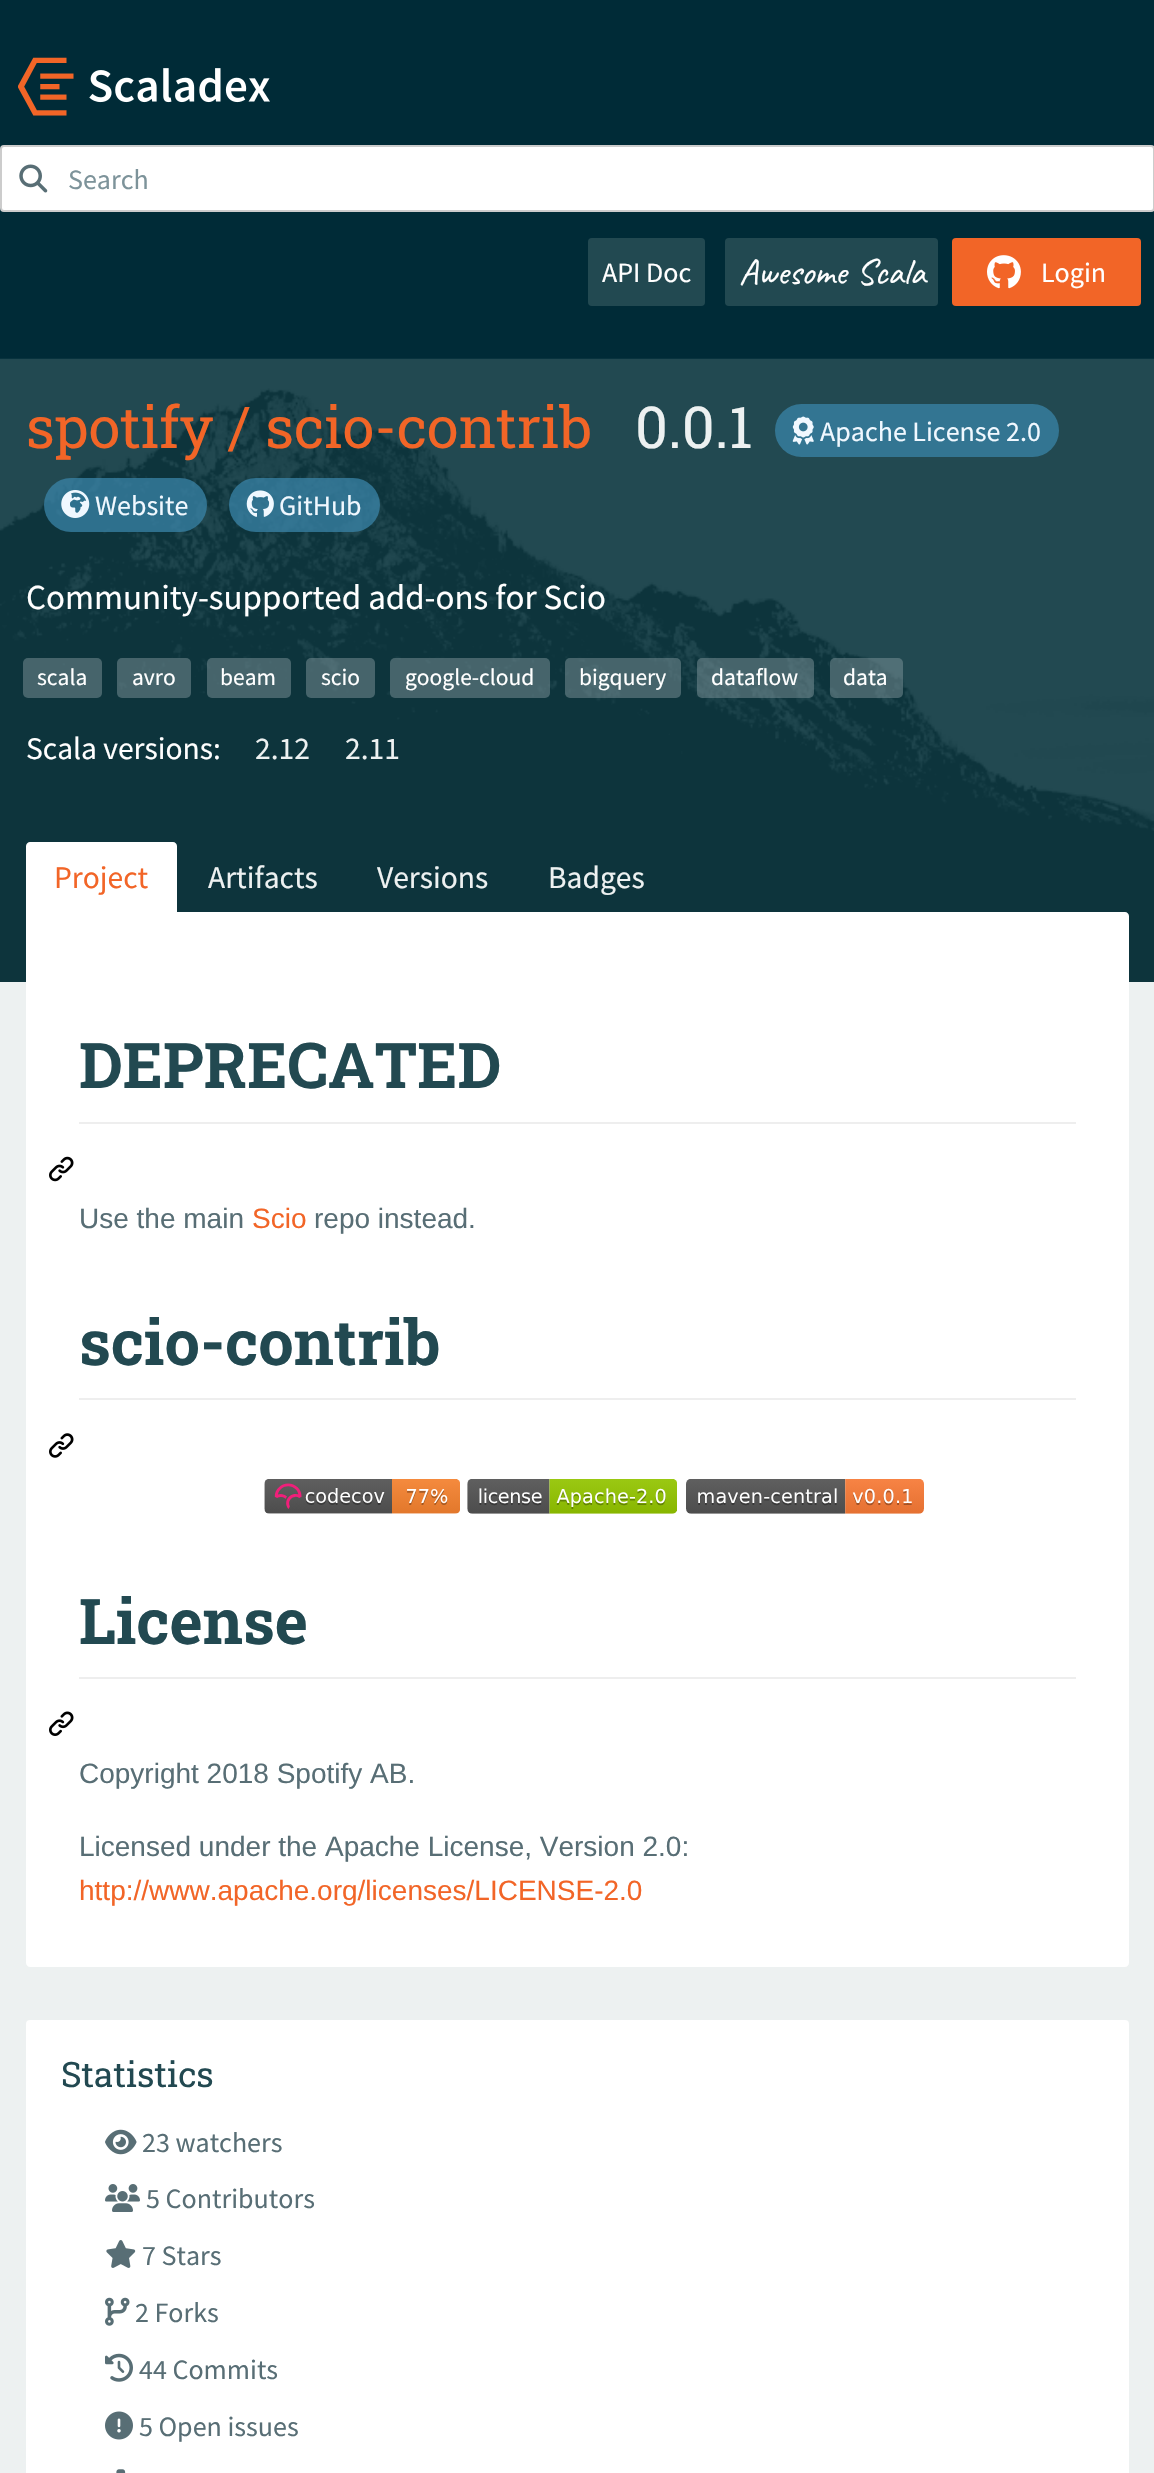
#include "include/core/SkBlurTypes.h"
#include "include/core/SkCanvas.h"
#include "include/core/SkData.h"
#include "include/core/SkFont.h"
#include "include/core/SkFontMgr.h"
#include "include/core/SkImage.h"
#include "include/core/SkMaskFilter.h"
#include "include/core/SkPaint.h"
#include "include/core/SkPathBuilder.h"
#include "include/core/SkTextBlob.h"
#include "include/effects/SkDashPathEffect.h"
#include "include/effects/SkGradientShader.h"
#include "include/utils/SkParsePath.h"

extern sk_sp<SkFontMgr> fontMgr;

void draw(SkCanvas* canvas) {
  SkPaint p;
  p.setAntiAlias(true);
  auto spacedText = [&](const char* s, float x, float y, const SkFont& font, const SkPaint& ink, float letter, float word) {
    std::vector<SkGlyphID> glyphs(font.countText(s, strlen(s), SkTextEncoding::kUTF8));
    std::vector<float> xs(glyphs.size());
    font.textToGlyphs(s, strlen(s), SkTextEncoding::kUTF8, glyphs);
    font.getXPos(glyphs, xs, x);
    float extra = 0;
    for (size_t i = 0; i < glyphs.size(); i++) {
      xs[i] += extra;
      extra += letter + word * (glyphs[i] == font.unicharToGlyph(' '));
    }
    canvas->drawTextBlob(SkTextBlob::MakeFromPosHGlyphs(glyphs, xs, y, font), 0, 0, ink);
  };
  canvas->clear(SkColorSetRGB(237, 241, 241));
  p.setColor(SkColorSetRGB(0, 43, 55));
  canvas->drawRect(SkRect::MakeLTRB(0, 0, 1154, 359), p);
  canvas->drawImageRect(SkImages::DeferredFromEncodedData(SkData::MakeFromFileName("images/1.png")), SkRect::MakeLTRB(18, 57, 270, 116), SkSamplingOptions());
  p.setColor(SK_ColorWHITE);
  canvas->drawRoundRect(SkRect::MakeLTRB(1, 146, 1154, 211), 3, 3, p);
  p.setStyle(SkPaint::kStroke_Style);
  p.setStrokeWidth(2);
  p.setColor(SkColorSetRGB(204, 204, 204));
  canvas->drawRoundRect(SkRect::MakeLTRB(1, 146, 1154, 211), 3, 3, p);
  canvas->drawImageRect(SkImages::DeferredFromEncodedData(SkData::MakeFromFileName("images/2.png")), SkRect::MakeLTRB(19, 164, 48, 193), SkSamplingOptions());
  p.setStyle(SkPaint::kFill_Style);
  p.setColor(SkColorSetRGB(34, 73, 81));
  canvas->drawRoundRect(SkRect::MakeLTRB(588, 238, 705, 306), 4, 4, p);
  canvas->drawRoundRect(SkRect::MakeLTRB(725, 238, 938, 306), 4, 4, p);
  p.setColor(SkColorSetRGB(242, 101, 39));
  canvas->drawRoundRect(SkRect::MakeLTRB(952, 238, 1141, 306), 4, 4, p);
  canvas->drawImageRect(SkImages::DeferredFromEncodedData(SkData::MakeFromFileName("images/3.png")), SkRect::MakeLTRB(987, 255, 1021, 289), SkSamplingOptions());
  p.setColor(SkColorSetRGB(13, 52, 60));
  canvas->drawRect(SkRect::MakeLTRB(0, 831, 1154, 982), p);
  canvas->drawImageRect(SkImages::DeferredFromEncodedData(SkData::MakeFromFileName("images/4.png")), SkRect::MakeLTRB(0, 358, 1154, 831), SkSamplingOptions());
  p.setColor(SkColorSetRGB(51, 117, 146));
  canvas->drawRoundRect(SkRect::MakeLTRB(775, 404, 1059, 457), 26.5f, 26.5f, p);
  canvas->drawImageRect(SkImages::DeferredFromEncodedData(SkData::MakeFromFileName("images/5.png")), SkRect::MakeLTRB(792, 416, 814, 445), SkSamplingOptions());
  p.setColor(SkColorSetARGB(186, 57, 133, 170));
  canvas->drawRoundRect(SkRect::MakeLTRB(44, 478, 207, 532), 27, 27, p);
  canvas->drawImageRect(SkImages::DeferredFromEncodedData(SkData::MakeFromFileName("images/6.png")), SkRect::MakeLTRB(61, 490, 90, 518), SkSamplingOptions());
  canvas->drawRoundRect(SkRect::MakeLTRB(229, 478, 380, 532), 27, 27, p);
  canvas->drawImageRect(SkImages::DeferredFromEncodedData(SkData::MakeFromFileName("images/7.png")), SkRect::MakeLTRB(246, 490, 274, 517), SkSamplingOptions());
  p.setColor(SkColorSetARGB(128, 125, 147, 154));
  canvas->drawRoundRect(SkRect::MakeLTRB(23, 658, 102, 698), 5, 5, p);
  canvas->drawRoundRect(SkRect::MakeLTRB(117, 658, 191, 698), 5, 5, p);
  canvas->drawRoundRect(SkRect::MakeLTRB(207, 658, 291, 698), 5, 5, p);
  canvas->drawRoundRect(SkRect::MakeLTRB(306, 658, 375, 698), 5, 5, p);
  canvas->drawRoundRect(SkRect::MakeLTRB(390, 658, 550, 698), 5, 5, p);
  canvas->drawRoundRect(SkRect::MakeLTRB(565, 658, 681, 698), 5, 5, p);
  canvas->drawRoundRect(SkRect::MakeLTRB(697, 658, 814, 698), 5, 5, p);
  canvas->drawRoundRect(SkRect::MakeLTRB(830, 658, 903, 698), 5, 5, p);
  p.setColor(SK_ColorWHITE);
  canvas->drawPath(SkPathBuilder().moveTo(30, 842).lineTo(173, 842).cubicTo(175, 842, 177, 844, 177, 846).lineTo(177, 912).lineTo(26, 912).lineTo(26, 846).cubicTo(26, 844, 28, 842, 30, 842).close().detach(), p);
  canvas->drawPath(SkPathBuilder().moveTo(26, 912).lineTo(1125, 912).cubicTo(1127, 912, 1129, 914, 1129, 916).lineTo(1129, 1963).cubicTo(1129, 1965, 1127, 1967, 1125, 1967).lineTo(30, 1967).cubicTo(28, 1967, 26, 1965, 26, 1963).close().detach(), p);
  p.setColor(SkColorSetRGB(238, 238, 238));
  canvas->drawRect(SkRect::MakeLTRB(79, 1122, 1076, 1124), p);
  canvas->drawImageRect(SkImages::DeferredFromEncodedData(SkData::MakeFromFileName("images/8.png")), SkRect::MakeLTRB(49, 1156, 74, 1182), SkSamplingOptions());
  canvas->drawRect(SkRect::MakeLTRB(79, 1398, 1076, 1400), p);
  canvas->drawImageRect(SkImages::DeferredFromEncodedData(SkData::MakeFromFileName("images/9.png")), SkRect::MakeLTRB(49, 1433, 74, 1458), SkSamplingOptions());
  canvas->drawImageRect(SkImages::DeferredFromEncodedData(SkData::MakeFromFileName("images/10.png")), SkRect::MakeLTRB(264, 1479, 460, 1514), SkSamplingOptions());
  canvas->drawImageRect(SkImages::DeferredFromEncodedData(SkData::MakeFromFileName("images/11.png")), SkRect::MakeLTRB(467, 1479, 677, 1514), SkSamplingOptions());
  canvas->drawImageRect(SkImages::DeferredFromEncodedData(SkData::MakeFromFileName("images/12.png")), SkRect::MakeLTRB(686, 1479, 924, 1514), SkSamplingOptions());
  canvas->drawRect(SkRect::MakeLTRB(79, 1677, 1076, 1679), p);
  canvas->drawImageRect(SkImages::DeferredFromEncodedData(SkData::MakeFromFileName("images/13.png")), SkRect::MakeLTRB(49, 1711, 74, 1736), SkSamplingOptions());
  p.setColor(SK_ColorWHITE);
  canvas->drawRoundRect(SkRect::MakeLTRB(26, 2020, 1129, 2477), 4, 4, p);
  canvas->drawImageRect(SkImages::DeferredFromEncodedData(SkData::MakeFromFileName("images/14.png")), SkRect::MakeLTRB(105, 2129, 137, 2155), SkSamplingOptions());
  canvas->drawImageRect(SkImages::DeferredFromEncodedData(SkData::MakeFromFileName("images/15.png")), SkRect::MakeLTRB(105, 2184, 140, 2212), SkSamplingOptions());
  canvas->drawImageRect(SkImages::DeferredFromEncodedData(SkData::MakeFromFileName("images/16.png")), SkRect::MakeLTRB(106, 2240, 136, 2268), SkSamplingOptions());
  canvas->drawImageRect(SkImages::DeferredFromEncodedData(SkData::MakeFromFileName("images/17.png")), SkRect::MakeLTRB(105, 2297, 130, 2326), SkSamplingOptions());
  canvas->drawImageRect(SkImages::DeferredFromEncodedData(SkData::MakeFromFileName("images/18.png")), SkRect::MakeLTRB(105, 2353, 133, 2382), SkSamplingOptions());
  canvas->drawImageRect(SkImages::DeferredFromEncodedData(SkData::MakeFromFileName("images/19.png")), SkRect::MakeLTRB(105, 2411, 133, 2440), SkSamplingOptions());
  canvas->drawImageRect(SkImages::DeferredFromEncodedData(SkData::MakeFromFileName("images/20.png")), SkRect::MakeLTRB(116, 2469, 126, 2473), SkSamplingOptions());
  SkFont font1(fontMgr->matchFamilyStyle("Source Sans Pro", SkFontStyle::Normal()), 28);
  font1.setSubpixel(true);
  p.setColor(SkColorSetRGB(125, 147, 154));
  canvas->drawString("Search", 68, 189, font1, p);
  p.setColor(SK_ColorWHITE);
  canvas->drawString("API Doc", 602, 282, font1, p);
  SkFont font2(fontMgr->matchFamilyStyle("Caveat", SkFontStyle::Normal()), 36.75f);
  font2.setSubpixel(true);
  spacedText("Awesome Scala", 739, 284, font2, p, 0, 1);
  canvas->drawString("Login", 1041, 282, font1, p);
  SkFont font3(fontMgr->matchFamilyStyle("Roboto Slab", SkFontStyle::Normal()), 57.75f);
  font3.setSubpixel(true);
  p.setColor(SkColorSetRGB(242, 101, 39));
  canvas->drawString("spotify / scio-contrib", 26, 448, font3, p);
  p.setColor(SkColorSetRGB(237, 241, 241));
  canvas->drawString("0.0.1", 635, 448, font3, p);
  p.setColor(SkColorSetRGB(240, 248, 255));
  canvas->drawString("Apache License 2.0", 820, 441, font1, p);
  canvas->drawString("Website", 95, 515, font1, p);
  canvas->drawString("GitHub", 279, 515, font1, p);
  SkFont font4(fontMgr->matchFamilyStyle("Source Sans Pro", SkFontStyle::Normal()), 35);
  font4.setSubpixel(true);
  p.setColor(SK_ColorWHITE);
  canvas->drawString("Community-supported add-ons for Scio", 26, 609, font4, p);
  SkFont font5(fontMgr->matchFamilyStyle("Source Sans Pro", SkFontStyle::Normal()), 23.5f);
  font5.setSubpixel(true);
  canvas->drawString("scala", 37, 685, font5, p);
  canvas->drawString("avro", 132, 685, font5, p);
  canvas->drawString("beam", 220, 685, font5, p);
  canvas->drawString("scio", 321, 685, font5, p);
  canvas->drawString("google-cloud", 405, 685, font5, p);
  canvas->drawString("bigquery", 579, 685, font5, p);
  canvas->drawString("dataflow", 711, 685, font5, p);
  canvas->drawString("data", 843, 685, font5, p);
  SkFont font6(fontMgr->matchFamilyStyle("Source Sans Pro", SkFontStyle::Normal()), 31.5f);
  font6.setSubpixel(true);
  canvas->drawString("Scala versions:", 26, 759, font6, p);
  p.setColor(SkColorSetRGB(237, 241, 241));
  canvas->drawString("2.12", 255, 759, font6, p);
  canvas->drawString("2.11", 345, 759, font6, p);
  p.setColor(SkColorSetRGB(242, 101, 39));
  canvas->drawString("Project", 54, 888, font6, p);
  p.setColor(SkColorSetRGB(237, 241, 241));
  canvas->drawString("Artifacts", 208, 888, font6, p);
  canvas->drawString("Versions", 377, 888, font6, p);
  canvas->drawString("Badges", 548, 888, font6, p);
  SkFont font7(fontMgr->matchFamilyStyle("Roboto Slab", SkFontStyle::Bold()), 63);
  font7.setSubpixel(true);
  p.setColor(SkColorSetRGB(34, 73, 81));
  canvas->drawString("DEPRECATED", 79, 1088, font7, p);
  SkFont font8(fontMgr->matchFamilyStyle("Liberation Sans", SkFontStyle::Normal()), 28);
  font8.setSubpixel(true);
  p.setColor(SkColorSetRGB(88, 110, 117));
  canvas->drawString("Use the main", 79, 1228, font8, p);
  p.setColor(SkColorSetRGB(242, 101, 39));
  canvas->drawString("Scio", 252, 1228, font8, p);
  p.setColor(SkColorSetRGB(88, 110, 117));
  canvas->drawString("repo instead.", 314, 1228, font8, p);
  p.setColor(SkColorSetRGB(34, 73, 81));
  canvas->drawString("scio-contrib", 79, 1365, font7, p);
  canvas->drawString("License", 79, 1644, font7, p);
  p.setColor(SkColorSetRGB(88, 110, 117));
  canvas->drawString("Copyright 2018 Spotify AB.", 79, 1783, font8, p);
  canvas->drawString("Licensed under the Apache License, Version 2.0:", 79, 1856, font8, p);
  p.setColor(SkColorSetRGB(242, 101, 39));
  canvas->drawString("http://www.apache.org/licenses/LICENSE-2.0", 79, 1900, font8, p);
  SkFont font9(fontMgr->matchFamilyStyle("Roboto Slab", SkFontStyle::Normal()), 35);
  font9.setSubpixel(true);
  p.setColor(SkColorSetRGB(34, 73, 81));
  canvas->drawString("Statistics", 61, 2087, font9, p);
  p.setColor(SkColorSetRGB(88, 110, 117));
  canvas->drawString("23 watchers", 142, 2152, font1, p);
  canvas->drawString("5 Contributors", 146, 2208, font1, p);
  canvas->drawString("7 Stars", 142, 2265, font1, p);
  canvas->drawString("2 Forks", 135, 2322, font1, p);
  canvas->drawString("44 Commits", 139, 2379, font1, p);
  canvas->drawString("5 Open issues", 139, 2436, font1, p);
}
